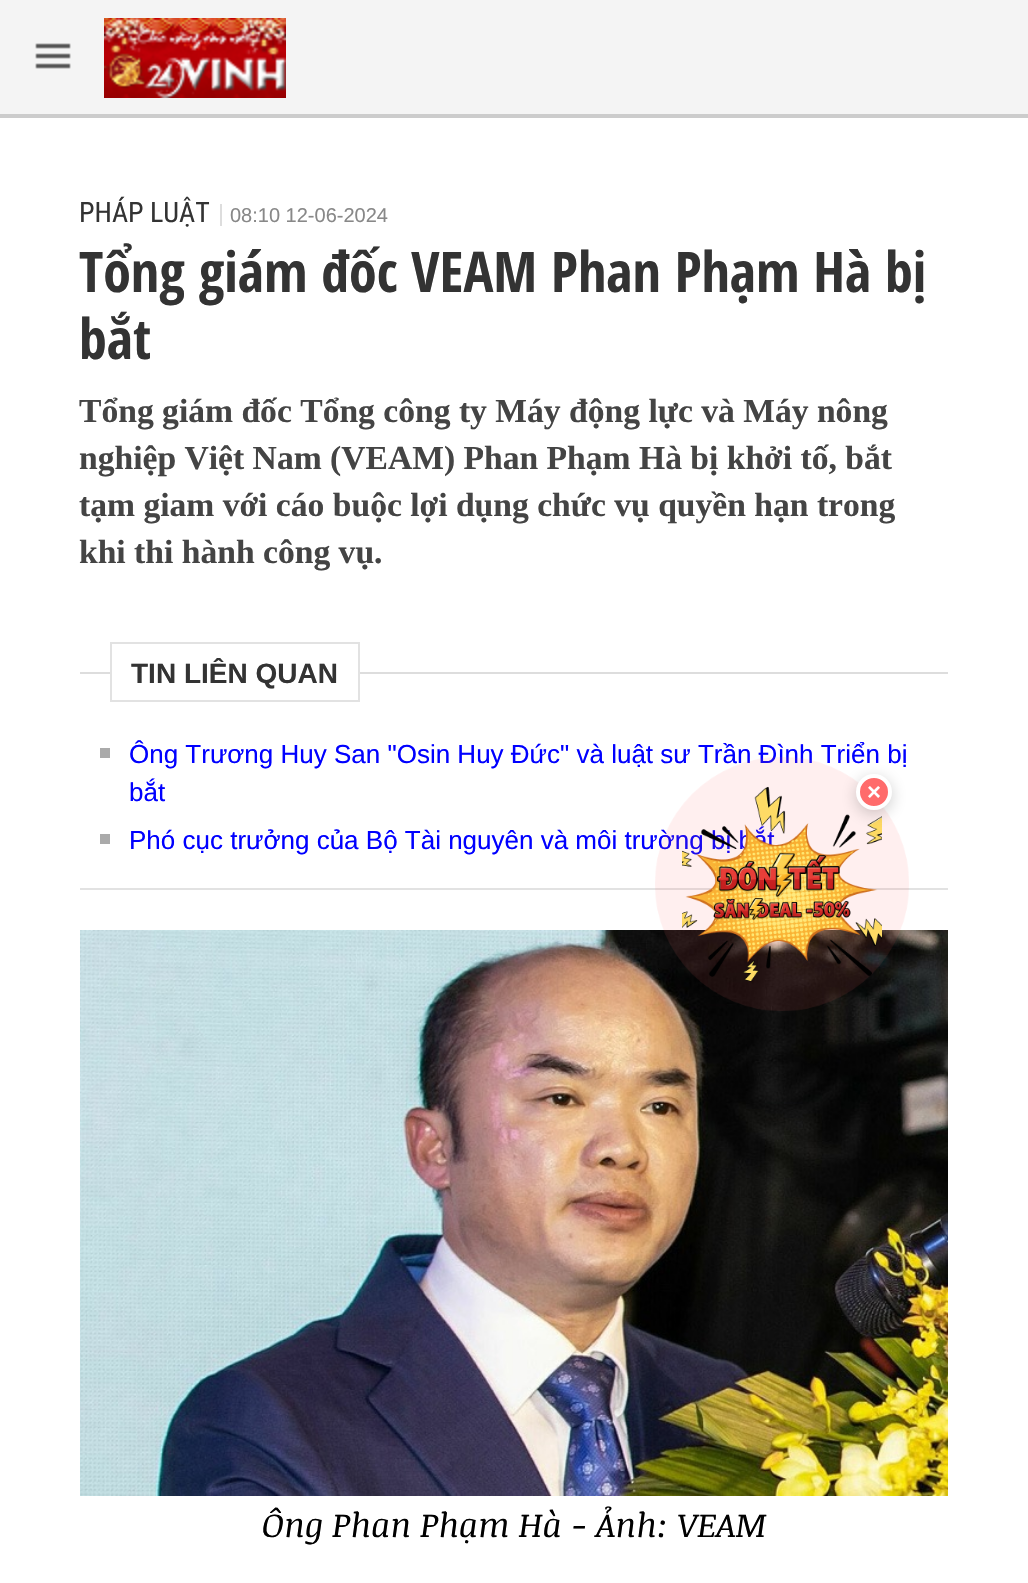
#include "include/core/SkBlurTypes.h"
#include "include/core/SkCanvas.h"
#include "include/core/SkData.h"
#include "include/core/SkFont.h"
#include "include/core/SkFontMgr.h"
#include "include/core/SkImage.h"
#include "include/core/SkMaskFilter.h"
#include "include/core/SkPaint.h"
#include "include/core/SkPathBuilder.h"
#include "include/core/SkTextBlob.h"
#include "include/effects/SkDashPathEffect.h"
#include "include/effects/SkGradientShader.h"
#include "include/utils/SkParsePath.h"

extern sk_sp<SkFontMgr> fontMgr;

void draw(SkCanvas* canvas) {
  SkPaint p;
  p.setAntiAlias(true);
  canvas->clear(SK_ColorWHITE);
  p.setColor(SkColorSetRGB(244, 244, 244));
  canvas->drawRect(SkRect::MakeLTRB(0, 0, 1028, 114), p);
  p.setColor(SkColorSetRGB(204, 204, 204));
  canvas->drawRect(SkRect::MakeLTRB(0, 114, 1028, 118), p);
  canvas->drawImageRect(SkImages::DeferredFromEncodedData(SkData::MakeFromFileName("images/1.png")), SkRect::MakeLTRB(35, 43, 71, 69), SkSamplingOptions());
  canvas->drawImageRect(SkImages::DeferredFromEncodedData(SkData::MakeFromFileName("images/2.png")), SkRect::MakeLTRB(104, 18, 286, 98), SkSamplingOptions());
  p.setColor(SkColorSetRGB(221, 221, 221));
  canvas->drawRect(SkRect::MakeLTRB(220, 204, 222, 226), p);
  canvas->drawRect(SkRect::MakeLTRB(80, 672, 948, 674), p);
  p.setColor(SkColorSetRGB(226, 226, 226));
  canvas->drawRect(SkRect::MakeLTRB(80, 888, 948, 890), p);
  p.setColor(SK_ColorWHITE);
  canvas->drawRect(SkRect::MakeLTRB(112, 672, 358, 674), p);
  p.setStyle(SkPaint::kStroke_Style);
  p.setStrokeWidth(2);
  p.setColor(SkColorSetRGB(226, 226, 226));
  canvas->drawRect(SkRect::MakeLTRB(111, 643, 359, 701), p);
  p.setStyle(SkPaint::kFill_Style);
  p.setColor(SkColorSetRGB(170, 170, 170));
  canvas->drawRect(SkRect::MakeLTRB(100, 748, 110, 758), p);
  canvas->drawRect(SkRect::MakeLTRB(100, 834, 110, 844), p);
  canvas->drawImageRect(SkImages::DeferredFromEncodedData(SkData::MakeFromFileName("images/3.png")), SkRect::MakeLTRB(80, 930, 948, 1496), SkSamplingOptions());
  SkFont font1(fontMgr->matchFamilyStyle("Roboto Condensed", SkFontStyle::Normal()), 28);
  font1.setSubpixel(true);
  p.setColor(SkColorSetRGB(51, 51, 51));
  canvas->drawString("PHÁP LUẬT", 79, 222, font1, p);
  SkFont font2(fontMgr->matchFamilyStyle("Liberation Sans", SkFontStyle::Normal()), 20);
  font2.setSubpixel(true);
  p.setColor(SkColorSetRGB(136, 136, 136));
  canvas->drawString("08:10 12-06-2024", 230, 222, font2, p);
  SkFont font3(fontMgr->matchFamilyStyle("Open Sans Condensed", SkFontStyle::Bold()), 56);
  font3.setSubpixel(true);
  p.setColor(SkColorSetRGB(51, 51, 51));
  canvas->drawString("Tổng giám đốc VEAM Phan Phạm Hà bị", 79, 292, font3, p);
  canvas->drawString("bắt", 79, 359, font3, p);
  SkFont font4(fontMgr->matchFamilyStyle("Liberation Serif", SkFontStyle::Bold()), 33.6f);
  font4.setSubpixel(true);
  p.setColor(SkColorSetRGB(68, 68, 68));
  canvas->drawString("Tổng giám đốc Tổng công ty Máy động lực và Máy nông", 79, 422, font4, p);
  canvas->drawString("nghiệp Việt Nam (VEAM) Phan Phạm Hà bị khởi tố, bắt", 79, 469, font4, p);
  canvas->drawString("tạm giam với cáo buộc lợi dụng chức vụ quyền hạn trong", 79, 516, font4, p);
  canvas->drawString("khi thi hành công vụ.", 79, 563, font4, p);
  SkFont font5(fontMgr->matchFamilyStyle("Liberation Sans", SkFontStyle::Bold()), 28);
  font5.setSubpixel(true);
  p.setColor(SkColorSetRGB(51, 51, 51));
  canvas->drawString("TIN LIÊN QUAN", 131, 683, font5, p);
  SkFont font6(fontMgr->matchFamilyStyle("Liberation Sans", SkFontStyle::Normal()), 26);
  font6.setSubpixel(true);
  p.setColor(SkColorSetRGB(0, 0, 255));
  canvas->drawString("Ông Trương Huy San \"Osin Huy Đức\" và luật sư Trần Đình Triển bị", 129, 763, font6, p);
  canvas->drawString("bắt", 129, 801, font6, p);
  canvas->drawString("Phó cục trưởng của Bộ Tài nguyên và môi trường bị bắt", 129, 849, font6, p);
  SkFont font7(fontMgr->matchFamilyStyle("Noticia Text", SkFontStyle::Italic()), 33.6f);
  font7.setSubpixel(true);
  p.setColor(SK_ColorBLACK);
  canvas->drawString("Ông Phan Phạm Hà - Ảnh: VEAM", 262, 1537, font7, p);
  canvas->drawImageRect(SkImages::DeferredFromEncodedData(SkData::MakeFromFileName("images/4.png")), SkRect::MakeLTRB(655, 757, 909, 1011), SkSamplingOptions());
}
